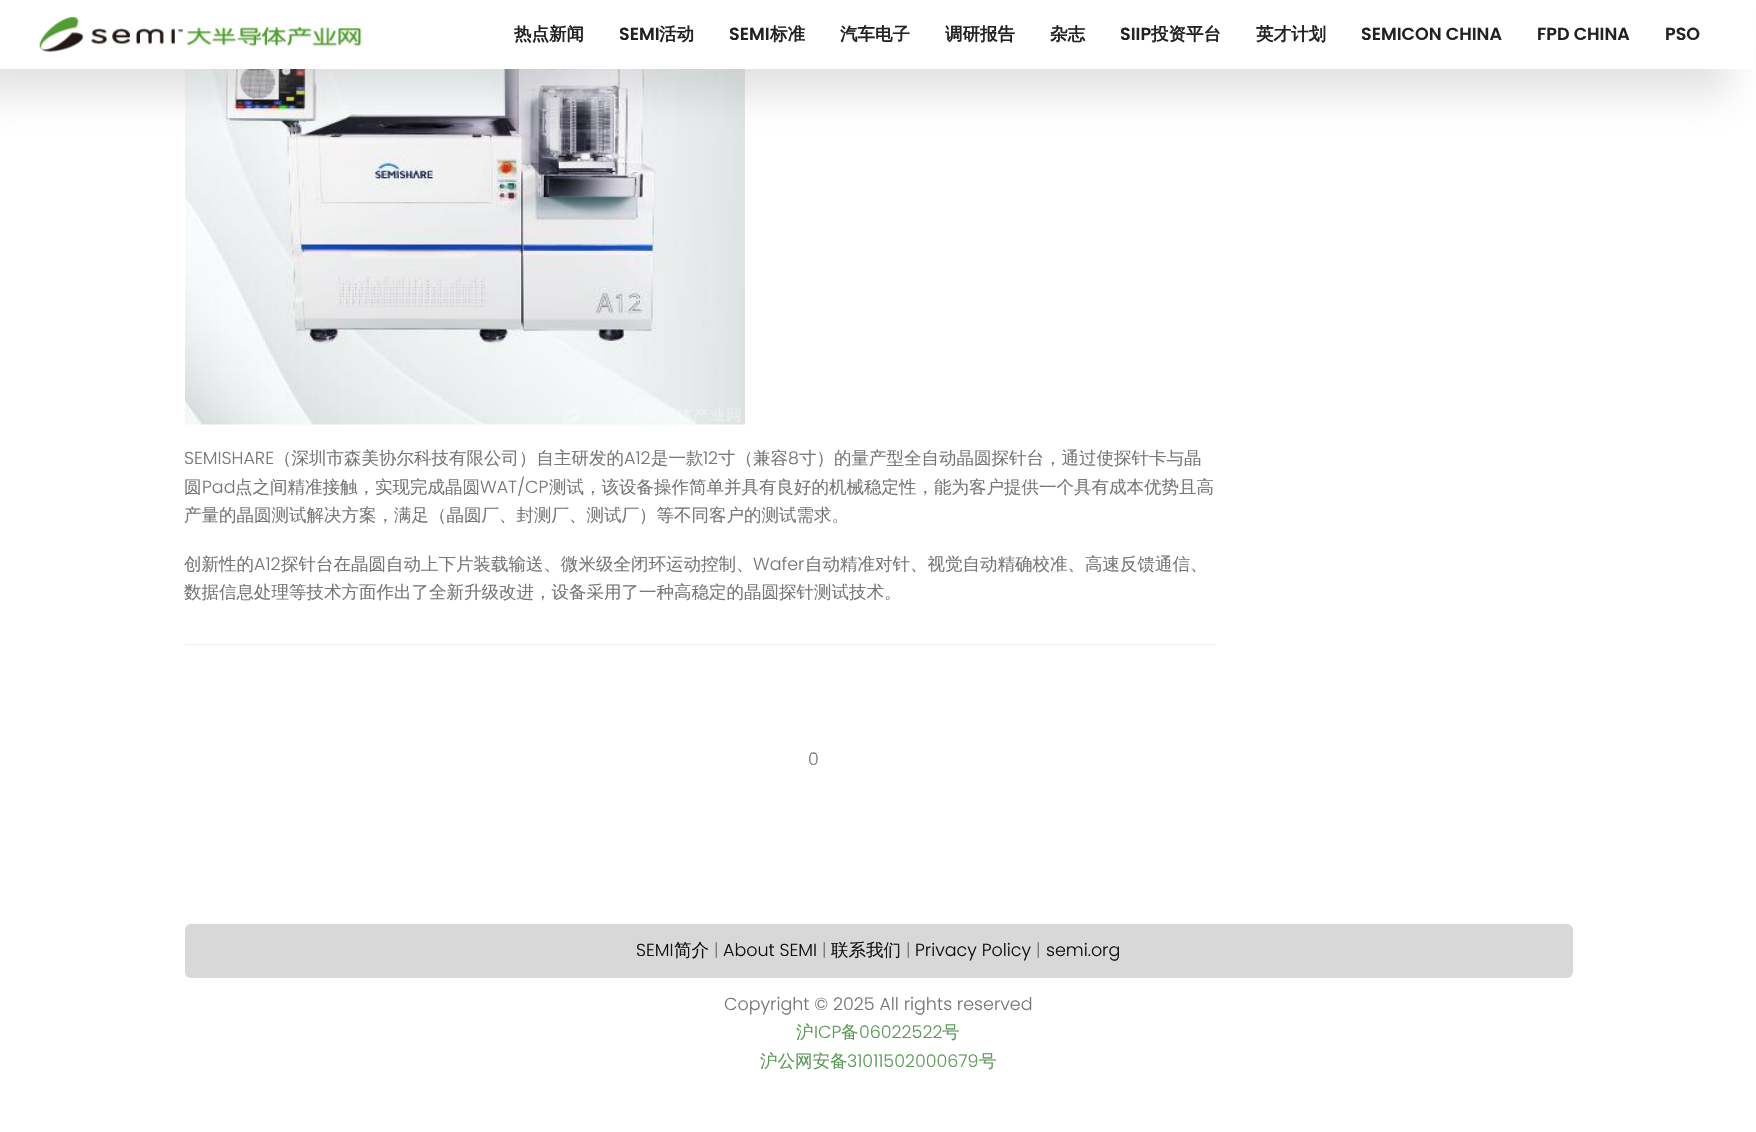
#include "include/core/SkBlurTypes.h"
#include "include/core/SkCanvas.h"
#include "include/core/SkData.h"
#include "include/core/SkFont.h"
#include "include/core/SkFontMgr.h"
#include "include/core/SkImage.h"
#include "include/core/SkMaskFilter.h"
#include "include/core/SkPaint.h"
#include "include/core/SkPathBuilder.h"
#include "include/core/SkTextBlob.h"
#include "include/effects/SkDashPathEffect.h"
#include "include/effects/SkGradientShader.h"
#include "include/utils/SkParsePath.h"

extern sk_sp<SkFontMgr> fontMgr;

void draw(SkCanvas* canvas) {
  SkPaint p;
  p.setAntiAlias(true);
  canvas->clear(SK_ColorWHITE);
  canvas->drawImageRect(SkImages::DeferredFromEncodedData(SkData::MakeFromFileName("images/2.png")), SkRect::MakeLTRB(185, 69, 745, 425), SkSamplingOptions());
  p.setColor(SkColorSetARGB(77, 158, 158, 158));
  p.setMaskFilter(SkMaskFilter::MakeBlur(kNormal_SkBlurStyle, 19));
  canvas->drawRect(SkRect::MakeLTRB(-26, 26, 1730, 95), p);
  p.setMaskFilter(nullptr);
  p.setColor(SK_ColorWHITE);
  canvas->drawRect(SkRect::MakeLTRB(0, 0, 1755, 69), p);
  canvas->drawImageRect(SkImages::DeferredFromEncodedData(SkData::MakeFromFileName("images/1.png")), SkRect::MakeLTRB(39, 17, 362, 52), SkSamplingOptions());
  p.setColor(SkColorSetRGB(238, 238, 238));
  canvas->drawRect(SkRect::MakeLTRB(185, 644, 1216, 645), p);
  p.setColor(SkColorSetRGB(216, 216, 216));
  canvas->drawRoundRect(SkRect::MakeLTRB(185, 924, 1573, 978), 6, 6, p);
  SkFont font1(fontMgr->matchFamilyStyle("WenQuanYi Zen Hei", SkFontStyle::Bold()), 17.5f);
  font1.setSubpixel(true);
  p.setColor(SkColorSetRGB(34, 34, 34));
  canvas->drawString("热点新闻", 514, 40, font1, p);
  SkFont font2(fontMgr->matchFamilyStyle("Poppins", SkFontStyle(600, SkFontStyle::kNormal_Width, SkFontStyle::kUpright_Slant)), 17.5f);
  font2.setSubpixel(true);
  canvas->drawString("SEMI", 619, 40, font2, p);
  canvas->drawString("活动", 659, 40, font1, p);
  canvas->drawString("SEMI", 729, 40, font2, p);
  canvas->drawString("标准", 770, 40, font1, p);
  canvas->drawString("汽车电子", 840, 40, font1, p);
  canvas->drawString("调研报告", 945, 40, font1, p);
  canvas->drawString("杂志", 1050, 40, font1, p);
  canvas->drawString("SIIP", 1120, 40, font2, p);
  canvas->drawString("投资平台", 1151, 40, font1, p);
  canvas->drawString("英才计划", 1256, 40, font1, p);
  canvas->drawString("SEMICON CHINA", 1361, 40, font2, p);
  canvas->drawString("FPD CHINA", 1537, 40, font2, p);
  canvas->drawString("PSO", 1665, 40, font2, p);
  SkFont font3(fontMgr->matchFamilyStyle("Poppins", SkFontStyle(300, SkFontStyle::kNormal_Width, SkFontStyle::kUpright_Slant)), 17.5f);
  font3.setSubpixel(true);
  p.setColor(SkColorSetRGB(119, 119, 119));
  canvas->drawString("SEMISHARE", 184, 464, font3, p);
  SkFont font4(fontMgr->matchFamilyStyle("WenQuanYi Zen Hei", SkFontStyle(500, SkFontStyle::kNormal_Width, SkFontStyle::kUpright_Slant)), 17.5f);
  font4.setSubpixel(true);
  canvas->drawString("（深圳市森美协尔科技有限公司）自主研发的", 274, 464, font4, p);
  canvas->drawString("A12", 624, 464, font3, p);
  canvas->drawString("是一款", 651, 464, font4, p);
  canvas->drawString("12", 703, 464, font3, p);
  canvas->drawString("寸（兼容", 718, 464, font4, p);
  canvas->drawString("8", 788, 464, font3, p);
  canvas->drawString("寸）的量产型全自动晶圆探针台，通过使探针卡与晶", 799, 464, font4, p);
  canvas->drawString("圆", 184, 493, font4, p);
  canvas->drawString("Pad", 202, 493, font3, p);
  canvas->drawString("点之间精准接触，实现完成晶圆", 235, 493, font4, p);
  canvas->drawString("WAT/CP", 480, 493, font3, p);
  canvas->drawString("测试，该设备操作简单并具有良好的机械稳定性，能为客户提供一个具有成本优势且高", 549, 493, font4, p);
  canvas->drawString("产量的晶圆测试解决方案，满足（晶圆厂、封测厂、测试厂）等不同客户的测试需求。", 184, 521, font4, p);
  canvas->drawString("创新性的", 184, 570, font4, p);
  canvas->drawString("A12", 254, 570, font3, p);
  canvas->drawString("探针台在晶圆自动上下片装载输送、微米级全闭环运动控制、", 281, 570, font4, p);
  canvas->drawString("Wafer", 753, 570, font3, p);
  canvas->drawString("自动精准对针、视觉自动精确校准、高速反馈通信、", 805, 570, font4, p);
  canvas->drawString("数据信息处理等技术方面作出了全新升级改进，设备采用了一种高稳定的晶圆探针测试技术。", 184, 598, font4, p);
  canvas->drawString("0", 808, 765, font3, p);
  p.setColor(SkColorSetRGB(17, 17, 17));
  canvas->drawString("SEMI", 636, 956, font3, p);
  canvas->drawString("简介", 674, 956, font4, p);
  p.setColor(SkColorSetRGB(119, 119, 119));
  canvas->drawString("|", 714, 956, font3, p);
  p.setColor(SkColorSetRGB(17, 17, 17));
  canvas->drawString("About SEMI", 723, 956, font3, p);
  p.setColor(SkColorSetRGB(119, 119, 119));
  canvas->drawString("|", 822, 956, font3, p);
  p.setColor(SkColorSetRGB(17, 17, 17));
  canvas->drawString("联系我们", 831, 956, font4, p);
  p.setColor(SkColorSetRGB(119, 119, 119));
  canvas->drawString("|", 906, 956, font3, p);
  p.setColor(SkColorSetRGB(17, 17, 17));
  canvas->drawString("Privacy Policy", 915, 956, font3, p);
  p.setColor(SkColorSetRGB(119, 119, 119));
  canvas->drawString("|", 1036, 956, font3, p);
  p.setColor(SkColorSetRGB(17, 17, 17));
  canvas->drawString("semi.org", 1046, 956, font3, p);
  p.setColor(SkColorSetRGB(119, 119, 119));
  canvas->drawString("Copyright © 2025 All rights reserved", 724, 1010, font3, p);
  p.setColor(SkColorSetRGB(92, 154, 88));
  canvas->drawString("沪", 796, 1038, font4, p);
  canvas->drawString("ICP", 814, 1038, font3, p);
  canvas->drawString("备", 841, 1038, font4, p);
  canvas->drawString("06022522", 859, 1038, font3, p);
  canvas->drawString("号", 942, 1038, font4, p);
  canvas->drawString("沪公网安备", 760, 1067, font4, p);
  canvas->drawString("31011502000679", 847, 1067, font3, p);
  canvas->drawString("号", 979, 1067, font4, p);
}
